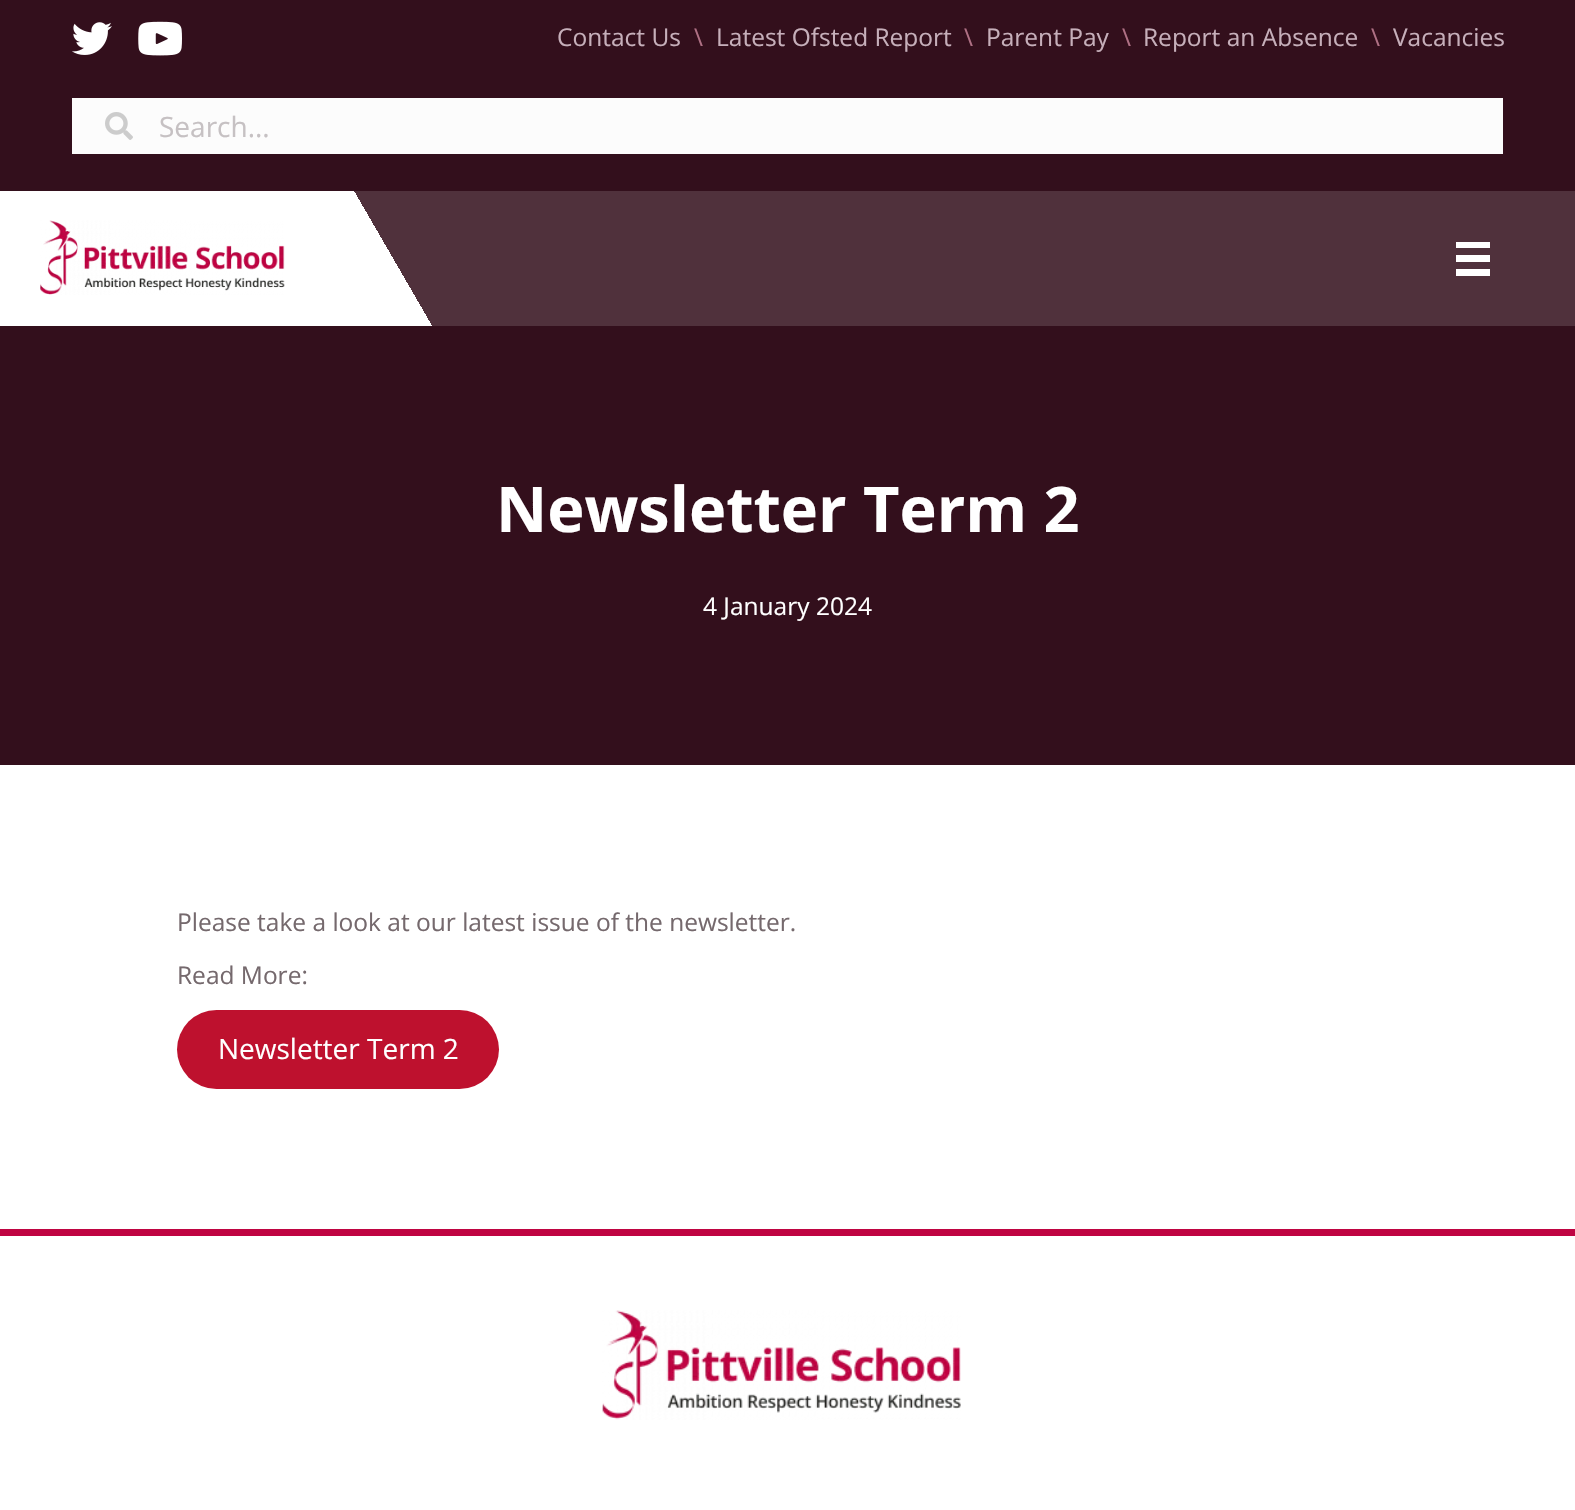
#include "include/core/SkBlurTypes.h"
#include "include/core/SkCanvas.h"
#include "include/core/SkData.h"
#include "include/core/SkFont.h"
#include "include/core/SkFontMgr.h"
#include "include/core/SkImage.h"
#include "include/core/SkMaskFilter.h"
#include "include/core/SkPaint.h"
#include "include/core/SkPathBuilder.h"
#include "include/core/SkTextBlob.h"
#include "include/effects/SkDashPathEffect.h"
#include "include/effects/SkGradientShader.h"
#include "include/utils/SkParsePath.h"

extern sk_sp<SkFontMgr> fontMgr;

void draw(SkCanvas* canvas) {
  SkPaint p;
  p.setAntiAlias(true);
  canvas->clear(SK_ColorWHITE);
  p.setColor(SkColorSetRGB(51, 15, 28));
  canvas->drawRect(SkRect::MakeLTRB(0, 0, 1575, 191), p);
  canvas->drawImageRect(SkImages::DeferredFromEncodedData(SkData::MakeFromFileName("images/1.png")), SkRect::MakeLTRB(72, 22, 112, 55), SkSamplingOptions());
  canvas->drawImageRect(SkImages::DeferredFromEncodedData(SkData::MakeFromFileName("images/2.png")), SkRect::MakeLTRB(138, 21, 182, 56), SkSamplingOptions());
  p.setColor(SkColorSetRGB(252, 252, 252));
  canvas->drawRect(SkRect::MakeLTRB(72, 98, 1503, 154), p);
  canvas->drawImageRect(SkImages::DeferredFromEncodedData(SkData::MakeFromFileName("images/3.png")), SkRect::MakeLTRB(105, 112, 133, 140), SkSamplingOptions());
  p.setColor(SkColorSetRGB(80, 49, 60));
  canvas->drawRect(SkRect::MakeLTRB(462, 191, 1575, 326), p);
  {
    const SkColor colors[] = {SK_ColorWHITE, SkColorSetRGB(80, 49, 60)};
    const float stops[] = {0.8f, 0.8f};
    const SkPoint ends[] = {{29, 375}, {433, 141}};
    p.setShader(SkGradientShader::MakeLinear(ends, colors, stops, 2, SkTileMode::kClamp));
    p.setAlpha(255);
  }
  canvas->drawRect(SkRect::MakeLTRB(354, 191, 462, 326), p);
  canvas->drawImageRect(SkImages::DeferredFromEncodedData(SkData::MakeFromFileName("images/4.png")), SkRect::MakeLTRB(40, 220, 285, 295), SkSamplingOptions());
  p.setShader(nullptr);
  p.setColor(SK_ColorWHITE);
  canvas->drawRect(SkRect::MakeLTRB(1456, 242, 1490, 248), p);
  canvas->drawRect(SkRect::MakeLTRB(1456, 255, 1490, 262), p);
  canvas->drawRect(SkRect::MakeLTRB(1456, 269, 1490, 276), p);
  p.setColor(SkColorSetRGB(51, 15, 28));
  canvas->drawRect(SkRect::MakeLTRB(0, 326, 1575, 765), p);
  p.setColor(SkColorSetRGB(190, 17, 46));
  canvas->drawRoundRect(SkRect::MakeLTRB(177, 1010, 499, 1089), 39.5f, 39.5f, p);
  p.setColor(SkColorSetRGB(191, 4, 66));
  canvas->drawRect(SkRect::MakeLTRB(0, 1229, 1575, 1236), p);
  canvas->drawImageRect(SkImages::DeferredFromEncodedData(SkData::MakeFromFileName("images/5.png")), SkRect::MakeLTRB(602, 1310, 961, 1420), SkSamplingOptions());
  SkFont font1(fontMgr->matchFamilyStyle("Open Sans", SkFontStyle::Normal()), 24.5f);
  font1.setSubpixel(true);
  p.setColor(SkColorSetRGB(198, 175, 186));
  canvas->drawString("Contact Us", 557, 46, font1, p);
  p.setColor(SkColorSetRGB(175, 112, 132));
  canvas->drawString("\\", 694, 46, font1, p);
  p.setColor(SkColorSetRGB(198, 175, 186));
  canvas->drawString("Latest Ofsted Report", 716, 46, font1, p);
  p.setColor(SkColorSetRGB(175, 112, 132));
  canvas->drawString("\\", 964, 46, font1, p);
  p.setColor(SkColorSetRGB(198, 175, 186));
  canvas->drawString("Parent Pay", 986, 46, font1, p);
  p.setColor(SkColorSetRGB(175, 112, 132));
  canvas->drawString("\\", 1122, 46, font1, p);
  p.setColor(SkColorSetRGB(198, 175, 186));
  canvas->drawString("Report an Absence", 1143, 46, font1, p);
  p.setColor(SkColorSetRGB(175, 112, 132));
  canvas->drawString("\\", 1371, 46, font1, p);
  p.setColor(SkColorSetRGB(198, 175, 186));
  canvas->drawString("Vacancies", 1393, 46, font1, p);
  SkFont font2(fontMgr->matchFamilyStyle("Open Sans", SkFontStyle::Normal()), 28);
  font2.setSubpixel(true);
  p.setColor(SkColorSetRGB(198, 193, 195));
  canvas->drawString("Search...", 159, 137, font2, p);
  SkFont font3(fontMgr->matchFamilyStyle("Open Sans", SkFontStyle::Bold()), 63);
  font3.setSubpixel(true);
  p.setColor(SK_ColorWHITE);
  canvas->drawString("Newsletter Term 2", 496, 532, font3, p);
  canvas->drawString("4 January 2024", 703, 615, font1, p);
  p.setColor(SkColorSetRGB(117, 105, 109));
  canvas->drawString("Please take a look at our latest issue of the newsletter.", 177, 931, font1, p);
  canvas->drawString("Read More:", 177, 984, font1, p);
  p.setColor(SK_ColorWHITE);
  canvas->drawString("Newsletter Term 2", 218, 1059, font2, p);
}
